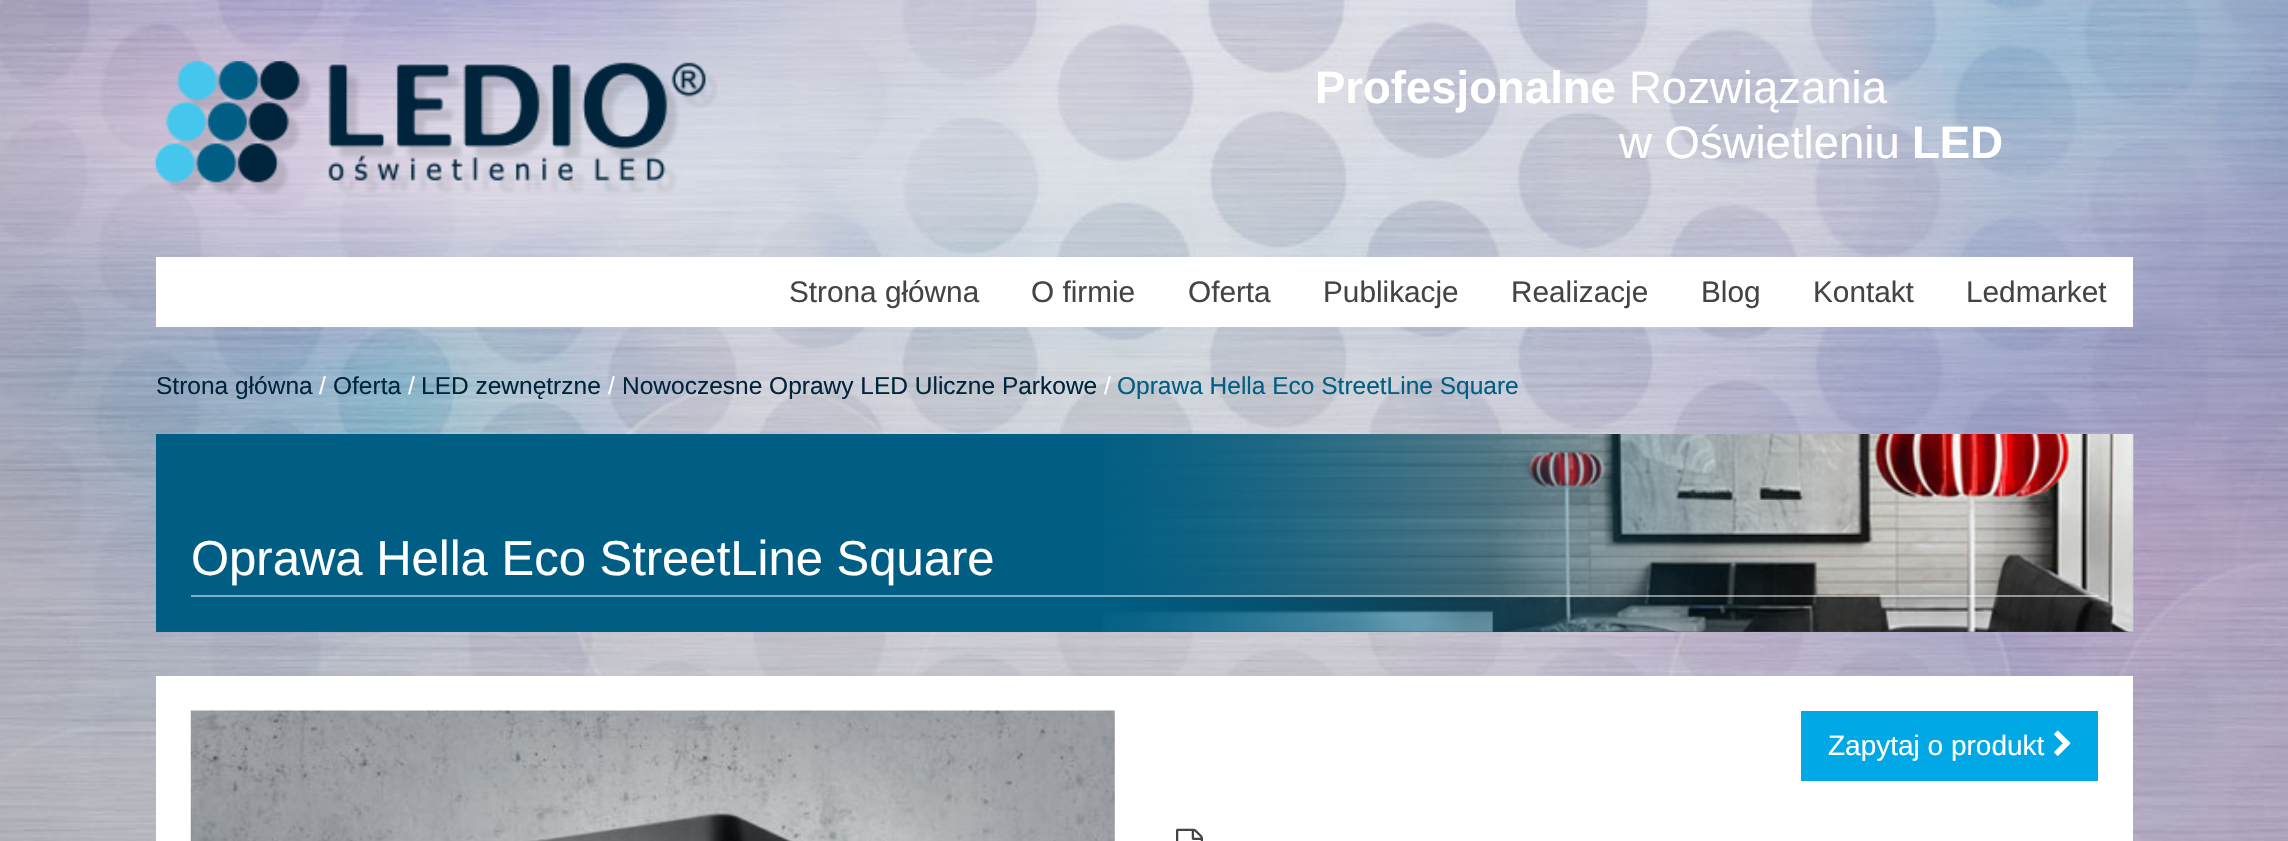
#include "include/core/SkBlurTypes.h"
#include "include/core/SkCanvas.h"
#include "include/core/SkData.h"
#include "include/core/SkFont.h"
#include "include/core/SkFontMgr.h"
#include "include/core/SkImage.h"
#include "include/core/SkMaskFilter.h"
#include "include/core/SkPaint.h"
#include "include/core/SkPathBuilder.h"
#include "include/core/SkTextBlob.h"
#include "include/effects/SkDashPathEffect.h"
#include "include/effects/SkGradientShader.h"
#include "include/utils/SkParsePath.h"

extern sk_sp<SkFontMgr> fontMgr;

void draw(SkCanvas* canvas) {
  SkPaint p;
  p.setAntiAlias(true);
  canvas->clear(SK_ColorWHITE);
  canvas->drawImageRect(SkImages::DeferredFromEncodedData(SkData::MakeFromFileName("images/1.png")), SkRect::MakeLTRB(0, 0, 2288, 841), SkSamplingOptions());
  canvas->drawImageRect(SkImages::DeferredFromEncodedData(SkData::MakeFromFileName("images/2.png")), SkRect::MakeLTRB(155, 61, 718, 194), SkSamplingOptions());
  p.setColor(SK_ColorWHITE);
  canvas->drawRect(SkRect::MakeLTRB(156, 257, 2133, 327), p);
  p.setColor(SkColorSetRGB(0, 94, 132));
  canvas->drawRect(SkRect::MakeLTRB(156, 434, 2133, 632), p);
  canvas->drawImageRect(SkImages::DeferredFromEncodedData(SkData::MakeFromFileName("images/3.png")), SkRect::MakeLTRB(1103, 434, 2134, 632), SkSamplingOptions());
  p.setColor(SkColorSetARGB(128, 255, 255, 255));
  canvas->drawRect(SkRect::MakeLTRB(191, 595, 2098, 597), p);
  p.setColor(SK_ColorWHITE);
  canvas->drawRect(SkRect::MakeLTRB(156, 676, 2133, 841), p);
  canvas->drawImageRect(SkImages::DeferredFromEncodedData(SkData::MakeFromFileName("images/4.png")), SkRect::MakeLTRB(190, 710, 1115, 841), SkSamplingOptions());
  p.setColor(SkColorSetRGB(0, 168, 230));
  canvas->drawRect(SkRect::MakeLTRB(1801, 711, 2098, 781), p);
  canvas->drawImageRect(SkImages::DeferredFromEncodedData(SkData::MakeFromFileName("images/5.png")), SkRect::MakeLTRB(2054, 730, 2071, 756), SkSamplingOptions());
  canvas->drawImageRect(SkImages::DeferredFromEncodedData(SkData::MakeFromFileName("images/6.png")), SkRect::MakeLTRB(1176, 828, 1203, 841), SkSamplingOptions());
  SkFont font1(fontMgr->matchFamilyStyle("Liberation Sans", SkFontStyle::Bold()), 45.5f);
  font1.setSubpixel(true);
  p.setColor(SK_ColorWHITE);
  canvas->drawString("Profesjonalne", 1315, 103, font1, p);
  SkFont font2(fontMgr->matchFamilyStyle("Liberation Sans", SkFontStyle::Normal()), 45.5f);
  font2.setSubpixel(true);
  canvas->drawString("Rozwiązania", 1629, 103, font2, p);
  canvas->drawString("w Oświetleniu", 1619, 158, font2, p);
  canvas->drawString("LED", 1912, 158, font1, p);
  SkFont font3(fontMgr->matchFamilyStyle("Liberation Sans", SkFontStyle::Normal()), 29.75f);
  font3.setSubpixel(true);
  p.setColor(SkColorSetRGB(68, 68, 68));
  canvas->drawString("Strona główna", 789, 302, font3, p);
  canvas->drawString("O firmie", 1031, 302, font3, p);
  canvas->drawString("Oferta", 1188, 302, font3, p);
  canvas->drawString("Publikacje", 1323, 302, font3, p);
  canvas->drawString("Realizacje", 1511, 302, font3, p);
  canvas->drawString("Blog", 1701, 302, font3, p);
  canvas->drawString("Kontakt", 1813, 302, font3, p);
  canvas->drawString("Ledmarket", 1966, 302, font3, p);
  SkFont font4(fontMgr->matchFamilyStyle("Liberation Sans", SkFontStyle::Normal()), 24.5f);
  font4.setSubpixel(true);
  p.setColor(SkColorSetRGB(0, 36, 59));
  canvas->drawString("Strona główna", 156, 394, font4, p);
  p.setColor(SK_ColorWHITE);
  canvas->drawString("/", 319, 394, font4, p);
  p.setColor(SkColorSetRGB(0, 36, 59));
  canvas->drawString("Oferta", 333, 394, font4, p);
  p.setColor(SK_ColorWHITE);
  canvas->drawString("/", 408, 394, font4, p);
  p.setColor(SkColorSetRGB(0, 36, 59));
  canvas->drawString("LED zewnętrzne", 421, 394, font4, p);
  p.setColor(SK_ColorWHITE);
  canvas->drawString("/", 608, 394, font4, p);
  p.setColor(SkColorSetRGB(0, 36, 59));
  canvas->drawString("Nowoczesne Oprawy LED Uliczne Parkowe", 622, 394, font4, p);
  p.setColor(SK_ColorWHITE);
  canvas->drawString("/", 1104, 394, font4, p);
  p.setColor(SkColorSetRGB(0, 94, 132));
  canvas->drawString("Oprawa Hella Eco StreetLine Square", 1117, 394, font4, p);
  SkFont font5(fontMgr->matchFamilyStyle("Liberation Sans", SkFontStyle::Normal()), 49);
  font5.setSubpixel(true);
  p.setColor(SK_ColorWHITE);
  canvas->drawString("Oprawa Hella Eco StreetLine Square", 191, 575, font5, p);
  SkFont font6(fontMgr->matchFamilyStyle("Liberation Sans", SkFontStyle::Normal()), 28);
  font6.setSubpixel(true);
  canvas->drawString("Zapytaj o produkt", 1828, 755, font6, p);
}
